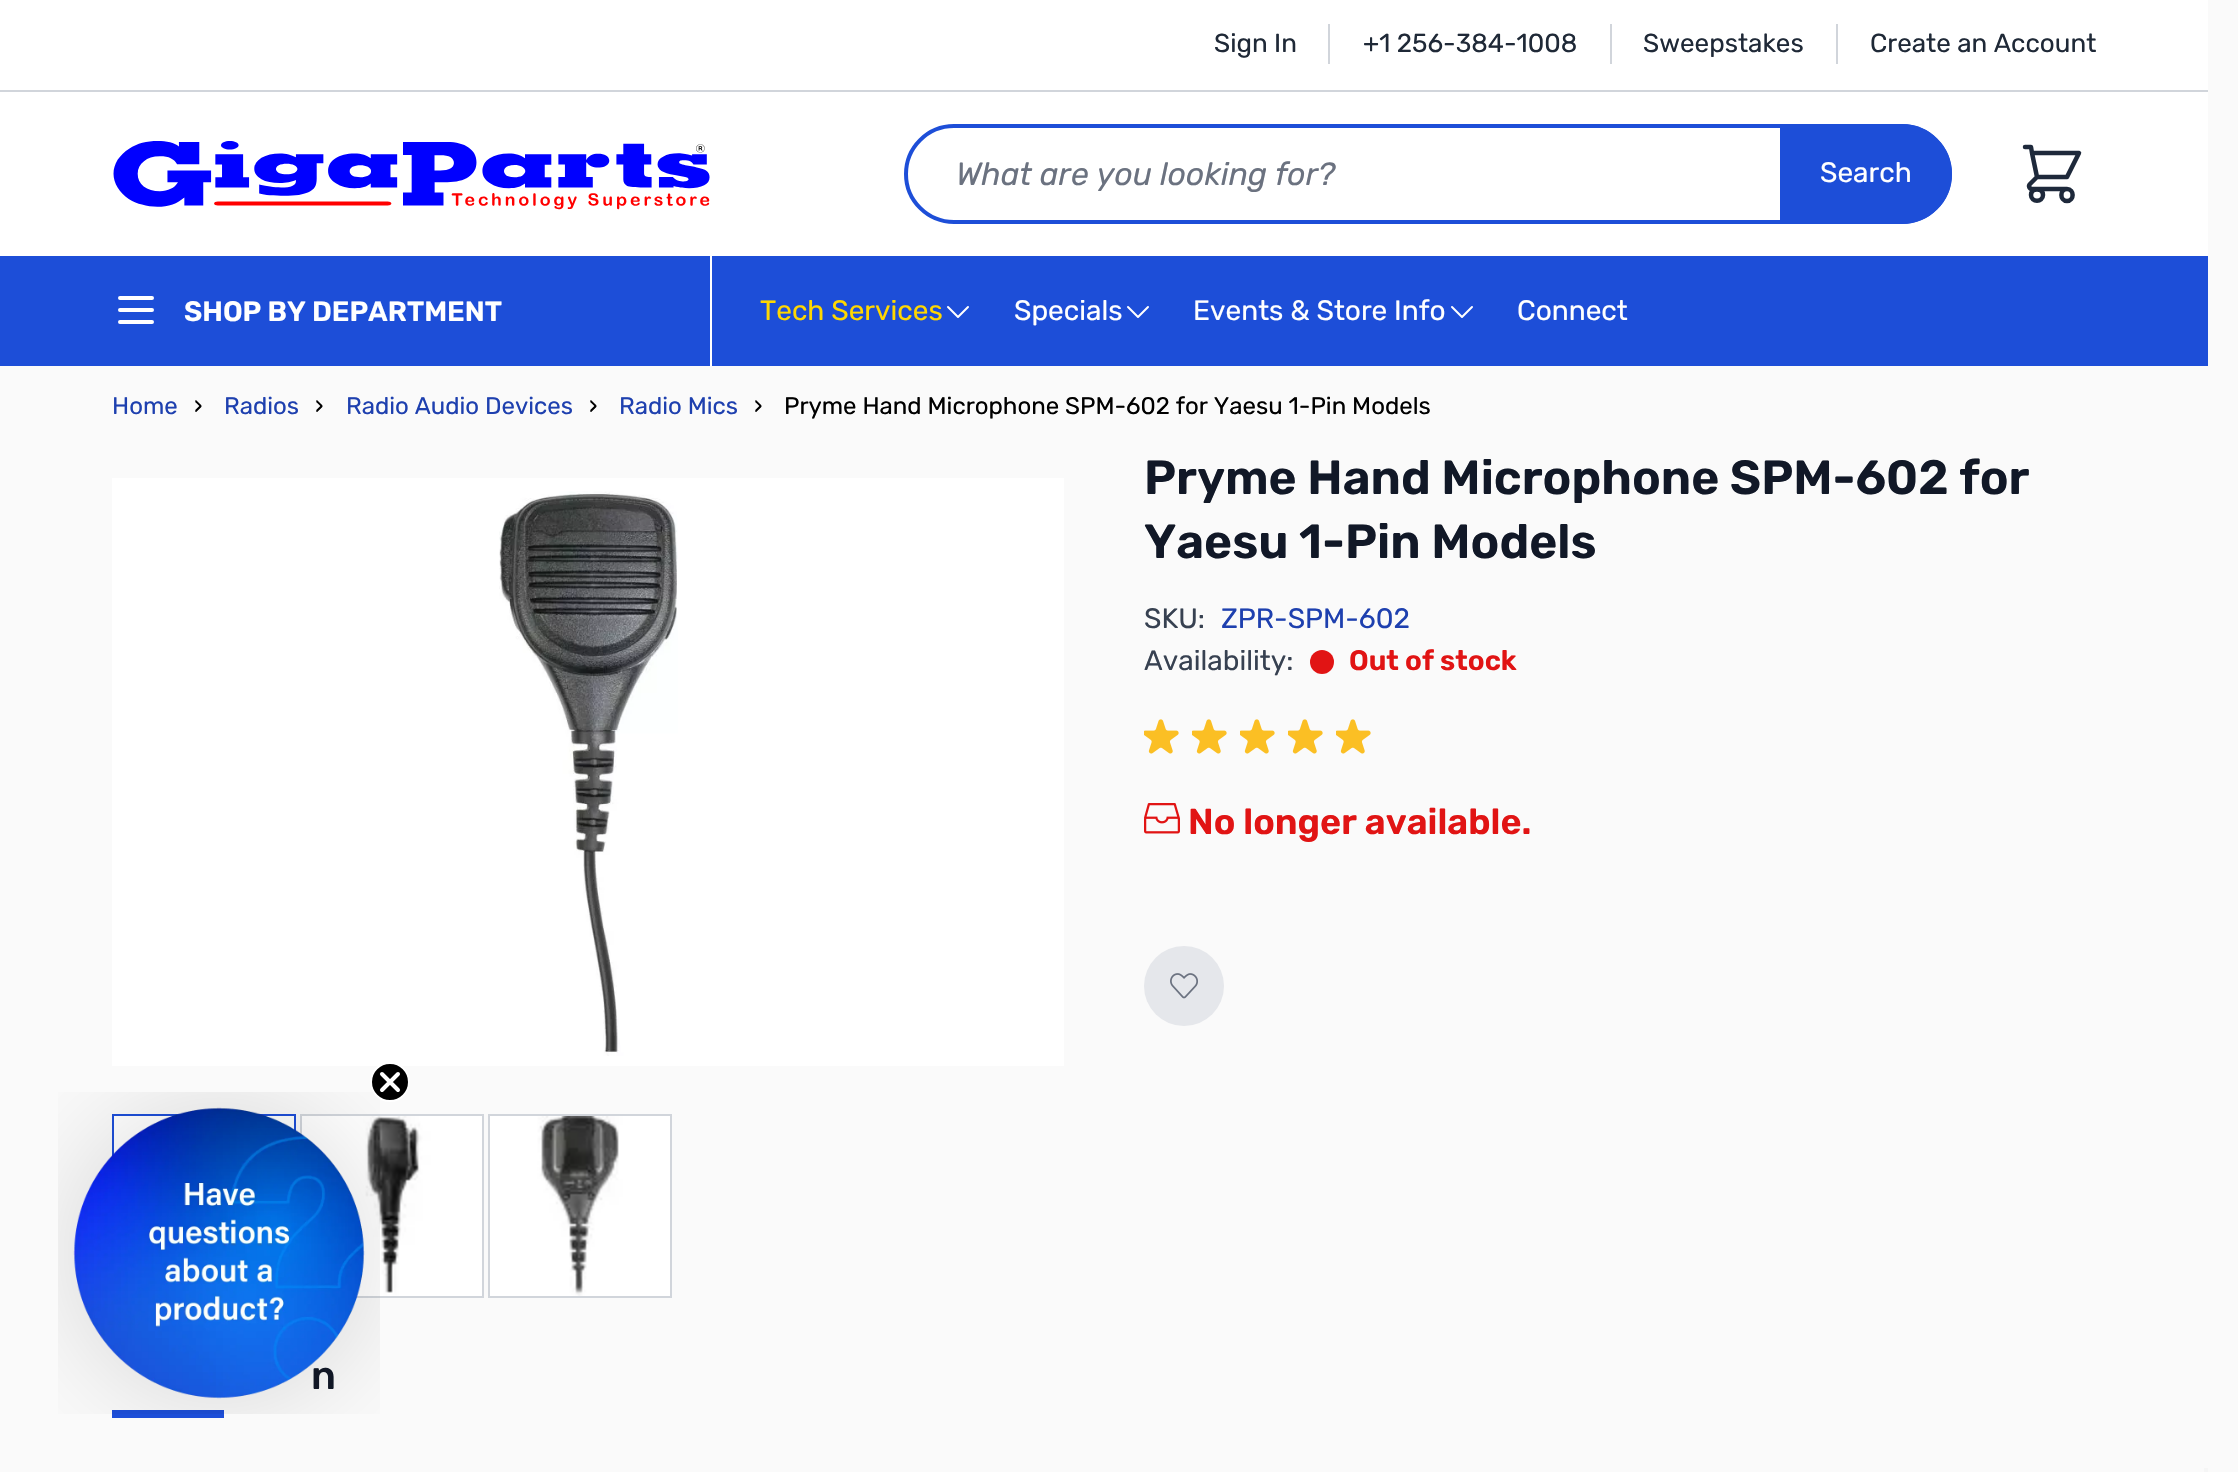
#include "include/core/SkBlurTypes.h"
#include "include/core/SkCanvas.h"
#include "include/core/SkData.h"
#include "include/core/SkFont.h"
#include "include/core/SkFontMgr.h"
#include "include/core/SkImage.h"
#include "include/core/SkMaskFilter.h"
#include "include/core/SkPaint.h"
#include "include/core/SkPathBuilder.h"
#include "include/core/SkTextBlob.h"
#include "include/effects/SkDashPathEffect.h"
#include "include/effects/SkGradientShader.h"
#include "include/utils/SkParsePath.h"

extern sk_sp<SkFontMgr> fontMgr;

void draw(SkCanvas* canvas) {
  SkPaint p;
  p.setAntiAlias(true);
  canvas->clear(SkColorSetRGB(250, 250, 250));
  p.setColor(SK_ColorWHITE);
  canvas->drawRect(SkRect::MakeLTRB(0, 0, 2208, 90), p);
  p.setColor(SkColorSetRGB(209, 213, 219));
  canvas->drawRect(SkRect::MakeLTRB(0, 90, 2208, 92), p);
  canvas->drawRect(SkRect::MakeLTRB(1328, 24, 1330, 64), p);
  canvas->drawRect(SkRect::MakeLTRB(1610, 24, 1612, 64), p);
  canvas->drawRect(SkRect::MakeLTRB(1836, 24, 1838, 64), p);
  p.setColor(SK_ColorWHITE);
  canvas->drawRect(SkRect::MakeLTRB(0, 92, 2208, 256), p);
  canvas->drawImageRect(SkImages::DeferredFromEncodedData(SkData::MakeFromFileName("images/1.png")), SkRect::MakeLTRB(113, 141, 710, 210), SkSamplingOptions());
  p.setStyle(SkPaint::kStroke_Style);
  p.setStrokeWidth(4);
  p.setColor(SkColorSetRGB(29, 78, 216));
  canvas->drawRoundRect(SkRect::MakeLTRB(906, 126, 1950, 222), 48, 48, p);
  p.setStyle(SkPaint::kFill_Style);
  canvas->drawPath(SkPathBuilder().moveTo(1780, 124).lineTo(1902, 124).cubicTo(1929.5f, 124, 1952, 146.5f, 1952, 174).cubicTo(1952, 201.5f, 1929.5f, 224, 1902, 224).lineTo(1780, 224).close().detach(), p);
  p.setStyle(SkPaint::kStroke_Style);
  p.setStrokeWidth(4.5f);
  p.setStrokeCap(SkPaint::kRound_Cap);
  p.setStrokeJoin(SkPaint::kRound_Join);
  p.setColor(SkColorSetRGB(30, 41, 59));
  canvas->drawPath(SkPathBuilder().moveTo(2025, 147).lineTo(2031, 147).lineTo(2032, 153).moveTo(2037, 177).lineTo(2067, 177).lineTo(2079, 153).lineTo(2032, 153).moveTo(2037, 177).lineTo(2032, 153).moveTo(2037, 177).lineTo(2030, 184).cubicTo(2028, 186, 2029.5f, 189, 2032, 189).lineTo(2067, 189).moveTo(2067, 189).cubicTo(2059.5f, 189, 2059.5f, 201, 2067, 201).cubicTo(2074.5f, 201, 2074.5f, 189, 2067, 189).close().moveTo(2043, 195).cubicTo(2043, 202.5f, 2031, 202.5f, 2031, 195).cubicTo(2031, 187.5f, 2043, 187.5f, 2043, 195).close().detach(), p);
  p.setStyle(SkPaint::kFill_Style);
  p.setColor(SkColorSetRGB(29, 78, 216));
  canvas->drawRect(SkRect::MakeLTRB(0, 256, 2208, 366), p);
  p.setColor(SK_ColorWHITE);
  canvas->drawRect(SkRect::MakeLTRB(710, 256, 712, 366), p);
  p.setStyle(SkPaint::kStroke_Style);
  p.setStrokeWidth(4);
  canvas->drawPath(SkPathBuilder().moveTo(120, 298).lineTo(152, 298).moveTo(120, 310).lineTo(152, 310).moveTo(120, 322).lineTo(152, 322).detach(), p);
  p.setStrokeWidth(2);
  canvas->drawPath(SkPathBuilder().moveTo(968, 307).lineTo(958, 317).lineTo(948, 307).detach(), p);
  canvas->drawPath(SkPathBuilder().moveTo(1148, 307).lineTo(1138, 317).lineTo(1128, 307).detach(), p);
  canvas->drawPath(SkPathBuilder().moveTo(1472, 307).lineTo(1462, 317).lineTo(1452, 307).detach(), p);
  p.setStyle(SkPaint::kFill_Style);
  canvas->drawRect(SkRect::MakeLTRB(112, 478, 1064, 1066), p);
  canvas->drawImageRect(SkImages::DeferredFromEncodedData(SkData::MakeFromFileName("images/2.png")), SkRect::MakeLTRB(499, 491, 678, 1056), SkSamplingOptions());
  p.setStyle(SkPaint::kStroke_Style);
  p.setStrokeCap(SkPaint::kButt_Cap);
  p.setStrokeJoin(SkPaint::kMiter_Join);
  p.setColor(SkColorSetRGB(29, 78, 216));
  canvas->drawRect(SkRect::MakeLTRB(113, 1115, 295, 1297), p);
  canvas->drawImageRect(SkImages::DeferredFromEncodedData(SkData::MakeFromFileName("images/3.png")), SkRect::MakeLTRB(114, 1116, 294, 1155), SkSamplingOptions());
  p.setColor(SkColorSetRGB(209, 213, 219));
  canvas->drawRect(SkRect::MakeLTRB(301, 1115, 483, 1297), p);
  canvas->drawImageRect(SkImages::DeferredFromEncodedData(SkData::MakeFromFileName("images/4.png")), SkRect::MakeLTRB(302, 1116, 482, 1296), SkSamplingOptions());
  canvas->drawRect(SkRect::MakeLTRB(489, 1115, 671, 1297), p);
  canvas->drawImageRect(SkImages::DeferredFromEncodedData(SkData::MakeFromFileName("images/5.png")), SkRect::MakeLTRB(490, 1116, 670, 1296), SkSamplingOptions());
  p.setStyle(SkPaint::kFill_Style);
  p.setColor(SkColorSetRGB(225, 20, 20));
  canvas->drawCircle(1322, 662, 12, p);
  canvas->drawImageRect(SkImages::DeferredFromEncodedData(SkData::MakeFromFileName("images/6.png")), SkRect::MakeLTRB(1144, 719, 1179, 754), SkSamplingOptions());
  canvas->drawImageRect(SkImages::DeferredFromEncodedData(SkData::MakeFromFileName("images/6.png")), SkRect::MakeLTRB(1192, 719, 1227, 754), SkSamplingOptions());
  canvas->drawImageRect(SkImages::DeferredFromEncodedData(SkData::MakeFromFileName("images/6.png")), SkRect::MakeLTRB(1240, 719, 1275, 754), SkSamplingOptions());
  canvas->drawImageRect(SkImages::DeferredFromEncodedData(SkData::MakeFromFileName("images/6.png")), SkRect::MakeLTRB(1288, 719, 1323, 754), SkSamplingOptions());
  canvas->drawImageRect(SkImages::DeferredFromEncodedData(SkData::MakeFromFileName("images/6.png")), SkRect::MakeLTRB(1336, 719, 1371, 754), SkSamplingOptions());
  canvas->drawImageRect(SkImages::DeferredFromEncodedData(SkData::MakeFromFileName("images/7.png")), SkRect::MakeLTRB(1144, 803, 1180, 834), SkSamplingOptions());
  p.setColor(SkColorSetRGB(229, 231, 235));
  canvas->drawCircle(1184, 986, 40, p);
  canvas->drawImageRect(SkImages::DeferredFromEncodedData(SkData::MakeFromFileName("images/8.png")), SkRect::MakeLTRB(1170, 973, 1198, 999), SkSamplingOptions());
  p.setColor(SkColorSetRGB(29, 78, 216));
  canvas->drawRect(SkRect::MakeLTRB(112, 1410, 224, 1418), p);
  p.setColor(SkColorSetRGB(245, 245, 245));
  canvas->drawRect(SkRect::MakeLTRB(2204, 1468, 2208, 1472), p);
  SkFont font1(fontMgr->matchFamilyStyle("Rubik", SkFontStyle::Normal()), 26);
  font1.setSubpixel(true);
  p.setColor(SkColorSetRGB(31, 41, 55));
  canvas->drawString("Sign In", 1214, 52, font1, p);
  canvas->drawString("+1 256-384-1008", 1363, 52, font1, p);
  canvas->drawString("Sweepstakes", 1643, 52, font1, p);
  canvas->drawString("Create an Account", 1870, 52, font1, p);
  SkFont font2(fontMgr->matchFamilyStyle("Rubik", SkFontStyle::Italic()), 32);
  font2.setSubpixel(true);
  p.setColor(SkColorSetRGB(107, 114, 128));
  canvas->drawString("What are you looking for?", 956, 185, font2, p);
  SkFont font3(fontMgr->matchFamilyStyle("Rubik", SkFontStyle::Normal()), 28);
  font3.setSubpixel(true);
  p.setColor(SK_ColorWHITE);
  canvas->drawString("Search", 1820, 182, font3, p);
  SkFont font4(fontMgr->matchFamilyStyle("Rubik", SkFontStyle(600, SkFontStyle::kNormal_Width, SkFontStyle::kUpright_Slant)), 28);
  font4.setSubpixel(true);
  canvas->drawString("SHOP BY DEPARTMENT", 184, 321, font4, p);
  p.setColor(SkColorSetRGB(255, 215, 0));
  canvas->drawString("Tech Services", 760, 320, font3, p);
  p.setColor(SK_ColorWHITE);
  canvas->drawString("Specials", 1014, 320, font3, p);
  canvas->drawString("Events & Store Info", 1193, 320, font3, p);
  canvas->drawString("Connect", 1517, 320, font3, p);
  SkFont font5(fontMgr->matchFamilyStyle("Rubik", SkFontStyle::Normal()), 24);
  font5.setSubpixel(true);
  p.setColor(SkColorSetRGB(30, 64, 175));
  canvas->drawString("Home", 112, 414, font5, p);
  p.setColor(SK_ColorBLACK);
  canvas->drawString("›", 194, 414, font5, p);
  p.setColor(SkColorSetRGB(30, 64, 175));
  canvas->drawString("Radios", 224, 414, font5, p);
  p.setColor(SK_ColorBLACK);
  canvas->drawString("›", 315, 414, font5, p);
  p.setColor(SkColorSetRGB(30, 64, 175));
  canvas->drawString("Radio Audio Devices", 346, 414, font5, p);
  p.setColor(SK_ColorBLACK);
  canvas->drawString("›", 589, 414, font5, p);
  p.setColor(SkColorSetRGB(30, 64, 175));
  canvas->drawString("Radio Mics", 619, 414, font5, p);
  p.setColor(SK_ColorBLACK);
  canvas->drawString("›", 754, 414, font5, p);
  canvas->drawString("Pryme Hand Microphone SPM-602 for Yaesu 1-Pin Models", 784, 414, font5, p);
  SkFont font6(fontMgr->matchFamilyStyle("Rubik", SkFontStyle(600, SkFontStyle::kNormal_Width, SkFontStyle::kUpright_Slant)), 48);
  font6.setSubpixel(true);
  p.setColor(SkColorSetRGB(17, 24, 39));
  canvas->drawString("Pryme Hand Microphone SPM-602 for", 1144, 494, font6, p);
  canvas->drawString("Yaesu 1-Pin Models", 1144, 558, font6, p);
  p.setColor(SkColorSetRGB(55, 65, 81));
  canvas->drawString("SKU:", 1144, 628, font3, p);
  p.setColor(SkColorSetRGB(30, 64, 175));
  canvas->drawString("ZPR-SPM-602", 1221, 628, font3, p);
  p.setColor(SkColorSetRGB(55, 65, 81));
  canvas->drawString("Availability:", 1144, 670, font3, p);
  p.setColor(SkColorSetRGB(225, 20, 20));
  canvas->drawString("Out of stock", 1349, 670, font4, p);
  SkFont font7(fontMgr->matchFamilyStyle("Rubik", SkFontStyle(600, SkFontStyle::kNormal_Width, SkFontStyle::kUpright_Slant)), 36);
  font7.setSubpixel(true);
  canvas->drawString("No longer available.", 1188, 834, font7, p);
  SkFont font8(fontMgr->matchFamilyStyle("Rubik", SkFontStyle(500, SkFontStyle::kNormal_Width, SkFontStyle::kUpright_Slant)), 40);
  font8.setSubpixel(true);
  p.setColor(SkColorSetRGB(17, 24, 39));
  canvas->drawString("n", 311, 1389, font8, p);
  canvas->drawImageRect(SkImages::DeferredFromEncodedData(SkData::MakeFromFileName("images/9.png")), SkRect::MakeLTRB(58, 1092, 380, 1414), SkSamplingOptions());
  p.setColor(SK_ColorBLACK);
  canvas->drawCircle(390, 1082, 19, p);
  p.setStyle(SkPaint::kStroke_Style);
  p.setColor(SK_ColorWHITE);
  canvas->drawCircle(390, 1082, 19, p);
  p.setStrokeWidth(4);
  p.setStrokeCap(SkPaint::kRound_Cap);
  p.setStrokeJoin(SkPaint::kRound_Join);
  canvas->drawPath(SkPathBuilder().moveTo(382, 1074).lineTo(398, 1090).moveTo(382, 1090).lineTo(398, 1074).close().detach(), p);
}
